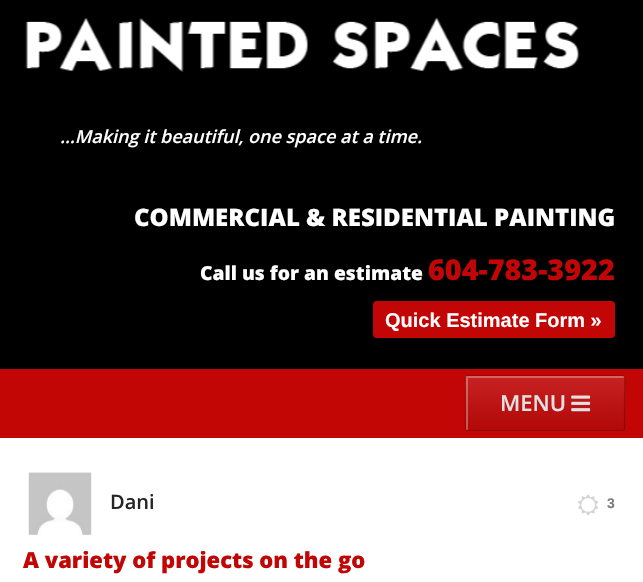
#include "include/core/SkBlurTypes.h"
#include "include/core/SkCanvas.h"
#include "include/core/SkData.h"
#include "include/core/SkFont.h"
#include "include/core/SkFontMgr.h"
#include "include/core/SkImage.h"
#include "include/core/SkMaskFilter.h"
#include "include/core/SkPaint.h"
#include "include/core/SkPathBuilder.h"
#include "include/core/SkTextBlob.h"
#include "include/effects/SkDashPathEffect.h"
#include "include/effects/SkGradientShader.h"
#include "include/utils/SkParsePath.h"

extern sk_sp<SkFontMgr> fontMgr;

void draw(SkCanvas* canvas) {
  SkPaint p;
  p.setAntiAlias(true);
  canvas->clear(SK_ColorWHITE);
  p.setColor(SK_ColorBLACK);
  canvas->drawRect(SkRect::MakeLTRB(0, 0, 643, 369), p);
  canvas->drawImageRect(SkImages::DeferredFromEncodedData(SkData::MakeFromFileName("images/1.png")), SkRect::MakeLTRB(25, 18, 580, 72), SkSamplingOptions());
  p.setColor(SkColorSetRGB(194, 5, 5));
  canvas->drawRoundRect(SkRect::MakeLTRB(373, 301, 615, 338), 4, 4, p);
  canvas->drawRect(SkRect::MakeLTRB(0, 369, 643, 438), p);
  p.setColor(SkColorSetRGB(193, 9, 9));
  canvas->drawRoundRect(SkRect::MakeLTRB(465, 375, 625, 431), 2.5f, 2.5f, p);
  canvas->save();
  canvas->clipPath(SkPathBuilder().moveTo(467.5f, 375).lineTo(622.5f, 375).cubicTo(624, 375, 625, 376, 625, 377.5f).lineTo(625, 428.5f).cubicTo(625, 430, 624, 431, 622.5f, 431).lineTo(467.5f, 431).cubicTo(466, 431, 465, 430, 465, 428.5f).lineTo(465, 377.5f).cubicTo(465, 376, 466, 375, 467.5f, 375).close().detach(), true);
  {
    const SkColor colors[] = {SkColorSetRGB(199, 34, 34), SkColorSetRGB(178, 8, 8)};
    const float stops[] = {0, 1};
    const SkPoint ends[] = {{545, 376}, {545, 430}};
    p.setShader(SkGradientShader::MakeLinear(ends, colors, stops, 2, SkTileMode::kClamp));
    p.setAlpha(255);
  }
  canvas->drawRect(SkRect::MakeLTRB(465, 376, 625, 430), p);
  canvas->restore();
  p.setShader(nullptr);
  p.setColor(SkColorSetARGB(77, 255, 255, 255));
  canvas->drawPath(SkPathBuilder().moveTo(469, 378).lineTo(624, 378).lineTo(624, 377).cubicTo(624, 376, 624, 376, 623, 376).lineTo(467, 376).cubicTo(466, 376, 466, 376, 466, 377).lineTo(466, 429).cubicTo(466, 430, 466, 430, 467, 430).lineTo(468, 430).lineTo(468, 378).close().detach(), p);
  p.setStyle(SkPaint::kStroke_Style);
  p.setStrokeWidth(1.2f);
  p.setColor(SkColorSetARGB(64, 0, 0, 0));
  canvas->drawPath(SkPathBuilder().moveTo(624, 376).cubicTo(625.5f, 378, 624.5f, 392, 624.5f, 394.5f).lineTo(624.5f, 420).cubicTo(624.5f, 424, 626, 430.5f, 622.5f, 430.5f).lineTo(467.5f, 430.5f).lineTo(466, 430).detach(), p);
  p.setColor(SkColorSetARGB(43, 0, 0, 0));
  canvas->drawPath(SkPathBuilder().moveTo(466, 430).cubicTo(464.5f, 428.5f, 465.5f, 414, 465.5f, 411.5f).lineTo(465.5f, 386).cubicTo(465.5f, 382.5f, 464, 375.5f, 467.5f, 375.5f).lineTo(622.5f, 375.5f).lineTo(624, 376).detach(), p);
  canvas->drawImageRect(SkImages::DeferredFromEncodedData(SkData::MakeFromFileName("images/2.png")), SkRect::MakeLTRB(571, 395, 591, 412), SkSamplingOptions());
  canvas->drawImageRect(SkImages::DeferredFromEncodedData(SkData::MakeFromFileName("images/3.png")), SkRect::MakeLTRB(28, 472, 92, 535), SkSamplingOptions());
  canvas->drawImageRect(SkImages::DeferredFromEncodedData(SkData::MakeFromFileName("images/4.png")), SkRect::MakeLTRB(578, 494, 599, 516), SkSamplingOptions());
  SkFont font1(fontMgr->matchFamilyStyle("Open Sans", SkFontStyle(600, SkFontStyle::kNormal_Width, SkFontStyle::kItalic_Slant)), 18);
  font1.setSubpixel(true);
  p.setStyle(SkPaint::kFill_Style);
  p.setColor(SK_ColorWHITE);
  canvas->drawString("…Making it beautiful, one space at a time.", 60, 143, font1, p);
  SkFont font2(fontMgr->matchFamilyStyle("Open Sans", SkFontStyle(800, SkFontStyle::kNormal_Width, SkFontStyle::kUpright_Slant)), 24);
  font2.setSubpixel(true);
  canvas->drawString("COMMERCIAL & RESIDENTIAL PAINTING", 134, 226, font2, p);
  SkFont font3(fontMgr->matchFamilyStyle("Open Sans", SkFontStyle(800, SkFontStyle::kNormal_Width, SkFontStyle::kUpright_Slant)), 19.25f);
  font3.setSubpixel(true);
  canvas->drawString("Call us for an estimate", 200, 280, font3, p);
  SkFont font4(fontMgr->matchFamilyStyle("Open Sans", SkFontStyle(800, SkFontStyle::kNormal_Width, SkFontStyle::kUpright_Slant)), 28.75f);
  font4.setSubpixel(true);
  p.setColor(SkColorSetRGB(194, 5, 5));
  canvas->drawString("604-783-3922", 428, 280, font4, p);
  SkFont font5(fontMgr->matchFamilyStyle("Liberation Sans", SkFontStyle::Bold()), 20);
  font5.setSubpixel(true);
  p.setColor(SK_ColorWHITE);
  canvas->drawString("Quick Estimate Form »", 385, 327, font5, p);
  SkFont font6(fontMgr->matchFamilyStyle("Open Sans", SkFontStyle(600, SkFontStyle::kNormal_Width, SkFontStyle::kUpright_Slant)), 22);
  font6.setSubpixel(true);
  p.setColor(SkColorSetRGB(225, 225, 225));
  canvas->drawString("MENU", 500, 411, font6, p);
  SkFont font7(fontMgr->matchFamilyStyle("Open Sans", SkFontStyle(600, SkFontStyle::kNormal_Width, SkFontStyle::kUpright_Slant)), 20);
  font7.setSubpixel(true);
  p.setColor(SkColorSetRGB(37, 37, 37));
  canvas->drawString("Dani", 110, 509, font7, p);
  SkFont font8(fontMgr->matchFamilyStyle("Liberation Sans", SkFontStyle::Bold()), 14);
  font8.setSubpixel(true);
  p.setColor(SkColorSetRGB(124, 124, 124));
  canvas->drawString("3", 607, 508, font8, p);
  SkFont font9(fontMgr->matchFamilyStyle("Open Sans", SkFontStyle(800, SkFontStyle::kNormal_Width, SkFontStyle::kUpright_Slant)), 22);
  font9.setSubpixel(true);
  p.setColor(SkColorSetRGB(194, 5, 5));
  canvas->drawString("A variety of projects on the go", 23, 568, font9, p);
}
